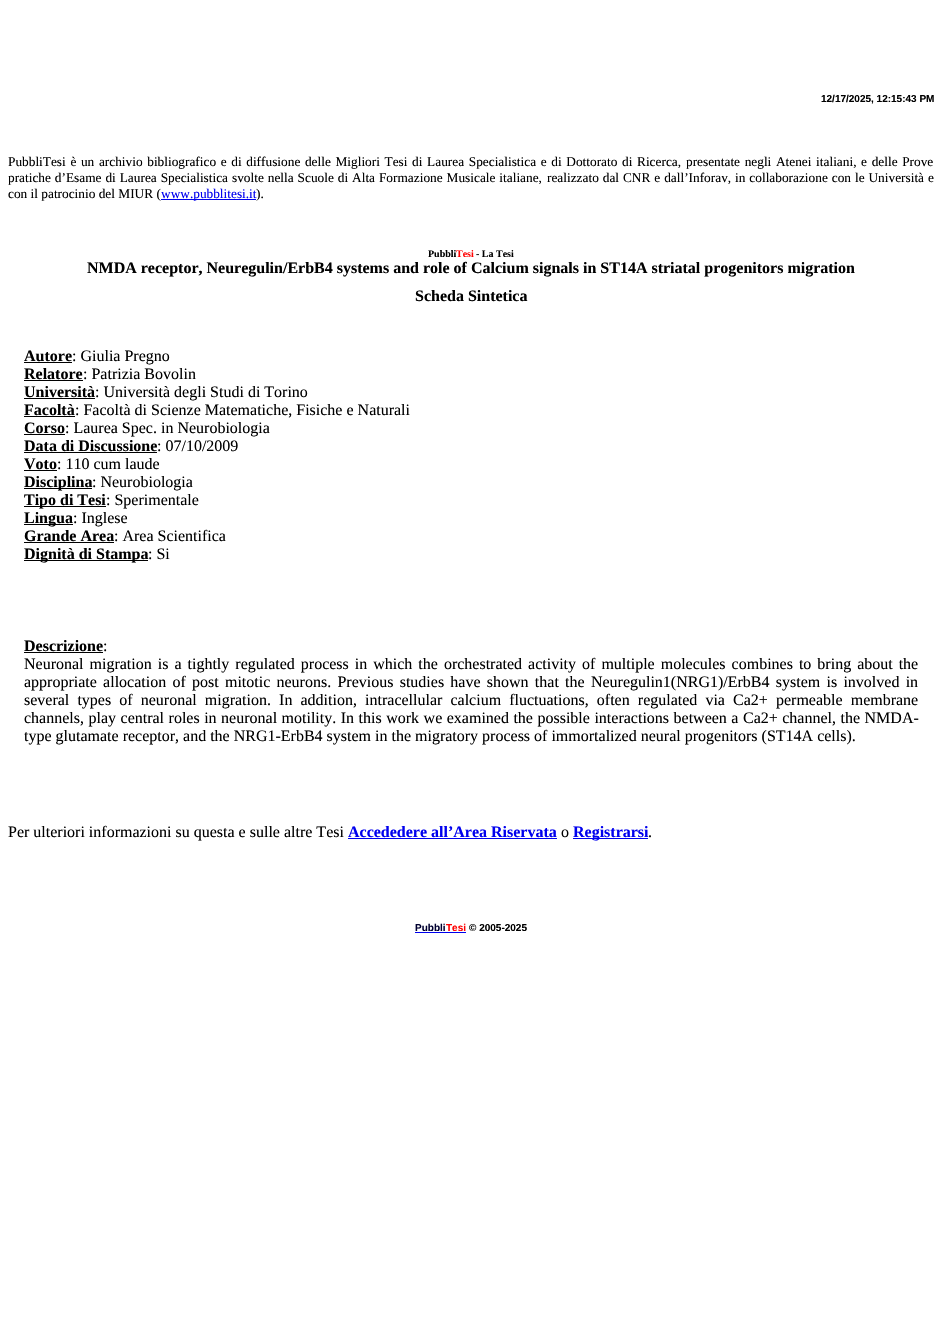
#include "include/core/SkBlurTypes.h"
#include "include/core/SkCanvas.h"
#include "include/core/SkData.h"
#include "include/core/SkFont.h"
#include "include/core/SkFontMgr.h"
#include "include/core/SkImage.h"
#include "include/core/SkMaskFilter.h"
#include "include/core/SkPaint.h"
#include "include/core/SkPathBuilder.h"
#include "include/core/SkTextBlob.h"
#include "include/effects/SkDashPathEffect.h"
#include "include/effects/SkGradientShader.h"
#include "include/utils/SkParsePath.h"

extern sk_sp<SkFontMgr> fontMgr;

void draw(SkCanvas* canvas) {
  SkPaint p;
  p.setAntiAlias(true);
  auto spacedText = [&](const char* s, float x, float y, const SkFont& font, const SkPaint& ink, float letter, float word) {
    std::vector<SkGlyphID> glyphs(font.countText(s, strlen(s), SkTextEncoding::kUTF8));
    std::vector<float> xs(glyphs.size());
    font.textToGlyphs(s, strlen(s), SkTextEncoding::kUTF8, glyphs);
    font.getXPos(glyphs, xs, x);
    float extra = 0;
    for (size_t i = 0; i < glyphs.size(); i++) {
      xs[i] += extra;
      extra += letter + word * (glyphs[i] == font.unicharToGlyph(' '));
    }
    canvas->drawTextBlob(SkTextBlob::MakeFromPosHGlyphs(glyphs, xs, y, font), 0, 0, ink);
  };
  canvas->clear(SK_ColorWHITE);
  p.setColor(SkColorSetRGB(0, 0, 238));
  canvas->drawRect(SkRect::MakeLTRB(161, 199, 256, 200), p);
  p.setColor(SK_ColorBLACK);
  canvas->drawRect(SkRect::MakeLTRB(24, 362, 72, 363), p);
  canvas->drawRect(SkRect::MakeLTRB(24, 380, 83, 381), p);
  canvas->drawRect(SkRect::MakeLTRB(24, 398, 95, 399), p);
  canvas->drawRect(SkRect::MakeLTRB(24, 416, 75, 417), p);
  canvas->drawRect(SkRect::MakeLTRB(24, 434, 65, 435), p);
  canvas->drawRect(SkRect::MakeLTRB(24, 452, 157, 453), p);
  canvas->drawRect(SkRect::MakeLTRB(24, 470, 57, 471), p);
  canvas->drawRect(SkRect::MakeLTRB(24, 488, 92, 489), p);
  canvas->drawRect(SkRect::MakeLTRB(24, 506, 106, 507), p);
  canvas->drawRect(SkRect::MakeLTRB(24, 524, 73, 525), p);
  canvas->drawRect(SkRect::MakeLTRB(24, 542, 114, 543), p);
  canvas->drawRect(SkRect::MakeLTRB(24, 560, 148, 561), p);
  canvas->drawRect(SkRect::MakeLTRB(24, 652, 103, 653), p);
  p.setColor(SkColorSetRGB(0, 0, 238));
  canvas->drawRect(SkRect::MakeLTRB(348, 838, 557, 839), p);
  canvas->drawRect(SkRect::MakeLTRB(573, 838, 648, 839), p);
  canvas->drawRect(SkRect::MakeLTRB(415, 932, 466, 933), p);
  SkFont font1(fontMgr->matchFamilyStyle("Liberation Sans", SkFontStyle::Bold()), 10);
  font1.setSubpixel(true);
  p.setColor(SK_ColorBLACK);
  canvas->drawString("12/17/2025, 12:15:43 PM", 821, 102, font1, p);
  SkFont font2(fontMgr->matchFamilyStyle("Liberation Serif", SkFontStyle::Normal()), 13.33f);
  font2.setSubpixel(true);
  spacedText("PubbliTesi è un archivio bibliografico e di diffusione delle Migliori Tesi di Laurea Specialistica e di Dottorato di Ricerca,", 8, 166, font2, p, 0, 1.3f);
  spacedText("presentate negli Atenei italiani, e delle Prove", 686, 166, font2, p, 0, 1.3f);
  spacedText("pratiche d’Esame di Laurea Specialistica svolte nella Scuole di Alta Formazione Musicale italiane,", 8, 182, font2, p, 0, 0.6f);
  spacedText("realizzato dal CNR e dall’Inforav, in collaborazione con le Università e", 547, 182, font2, p, 0, 0.6f);
  canvas->drawString("con il patrocinio del MIUR (", 8, 198, font2, p);
  p.setColor(SkColorSetRGB(0, 0, 238));
  canvas->drawString("www.pubblitesi.it", 161, 198, font2, p);
  p.setColor(SK_ColorBLACK);
  canvas->drawString(").", 256, 198, font2, p);
  SkFont font3(fontMgr->matchFamilyStyle("Liberation Serif", SkFontStyle::Bold()), 10);
  font3.setSubpixel(true);
  canvas->drawString("Pubbli", 428, 257, font3, p);
  p.setColor(SkColorSetRGB(255, 0, 0));
  canvas->drawString("Tesi", 456, 257, font3, p);
  p.setColor(SK_ColorBLACK);
  canvas->drawString("- La Tesi", 476, 257, font3, p);
  SkFont font4(fontMgr->matchFamilyStyle("Liberation Serif", SkFontStyle::Bold()), 16);
  font4.setSubpixel(true);
  canvas->drawString("NMDA receptor, Neuregulin/ErbB4 systems and role of Calcium signals in ST14A striatal progenitors migration", 87, 273, font4, p);
  canvas->drawString("Scheda Sintetica", 415, 301, font4, p);
  canvas->drawString("Autore", 24, 361, font4, p);
  SkFont font5(fontMgr->matchFamilyStyle("Liberation Serif", SkFontStyle::Normal()), 16);
  font5.setSubpixel(true);
  canvas->drawString(": Giulia Pregno", 72, 361, font5, p);
  canvas->drawString("Relatore", 24, 379, font4, p);
  canvas->drawString(": Patrizia Bovolin", 83, 379, font5, p);
  canvas->drawString("Università", 24, 397, font4, p);
  canvas->drawString(": Università degli Studi di Torino", 95, 397, font5, p);
  canvas->drawString("Facoltà", 24, 415, font4, p);
  canvas->drawString(": Facoltà di Scienze Matematiche, Fisiche e Naturali", 75, 415, font5, p);
  canvas->drawString("Corso", 24, 433, font4, p);
  canvas->drawString(": Laurea Spec. in Neurobiologia", 65, 433, font5, p);
  canvas->drawString("Data di Discussione", 24, 451, font4, p);
  canvas->drawString(": 07/10/2009", 157, 451, font5, p);
  canvas->drawString("Voto", 24, 469, font4, p);
  canvas->drawString(": 110 cum laude", 57, 469, font5, p);
  canvas->drawString("Disciplina", 24, 487, font4, p);
  canvas->drawString(": Neurobiologia", 92, 487, font5, p);
  canvas->drawString("Tipo di Tesi", 24, 505, font4, p);
  canvas->drawString(": Sperimentale", 106, 505, font5, p);
  canvas->drawString("Lingua", 24, 523, font4, p);
  canvas->drawString(": Inglese", 73, 523, font5, p);
  canvas->drawString("Grande Area", 24, 541, font4, p);
  canvas->drawString(": Area Scientifica", 114, 541, font5, p);
  canvas->drawString("Dignità di Stampa", 24, 559, font4, p);
  canvas->drawString(": Si", 148, 559, font5, p);
  canvas->drawString("Descrizione", 24, 651, font4, p);
  canvas->drawString(":", 103, 651, font5, p);
  spacedText("Neuronal migration is a tightly regulated process in which the orchestrated activity of multiple molecules combines to bring about the", 24, 669, font5, p, 0, 2);
  spacedText("appropriate allocation of post mitotic neurons. Previous studies have shown that the Neuregulin1(NRG1)/ErbB4 system is involved in", 24, 687, font5, p, 0, 2.25f);
  spacedText("several types of neuronal migration. In addition, intracellular calcium fluctuations, often regulated via Ca2+ permeable membrane", 24, 705, font5, p, 0, 4.1f);
  spacedText("channels, play central roles in neuronal motility. In this work we examined the possible interactions between a Ca2+ channel, the NMDA-", 24, 723, font5, p, 0, 0.5f);
  canvas->drawString("type glutamate receptor, and the NRG1-ErbB4 system in the migratory process of immortalized neural progenitors (ST14A cells).", 24, 741, font5, p);
  canvas->drawString("Per ulteriori informazioni su questa e sulle altre Tesi", 8, 837, font5, p);
  p.setColor(SkColorSetRGB(0, 0, 238));
  canvas->drawString("Accededere all’Area Riservata", 348, 837, font4, p);
  p.setColor(SK_ColorBLACK);
  canvas->drawString("o", 561, 837, font5, p);
  p.setColor(SkColorSetRGB(0, 0, 238));
  canvas->drawString("Registrarsi", 573, 837, font4, p);
  p.setColor(SK_ColorBLACK);
  canvas->drawString(".", 648, 837, font5, p);
  p.setColor(SkColorSetRGB(0, 0, 48));
  canvas->drawString("Pubbli", 415, 931, font1, p);
  p.setColor(SkColorSetRGB(255, 0, 0));
  canvas->drawString("Tesi", 446, 931, font1, p);
  p.setColor(SK_ColorBLACK);
  canvas->drawString("© 2005-2025", 469, 931, font1, p);
}
